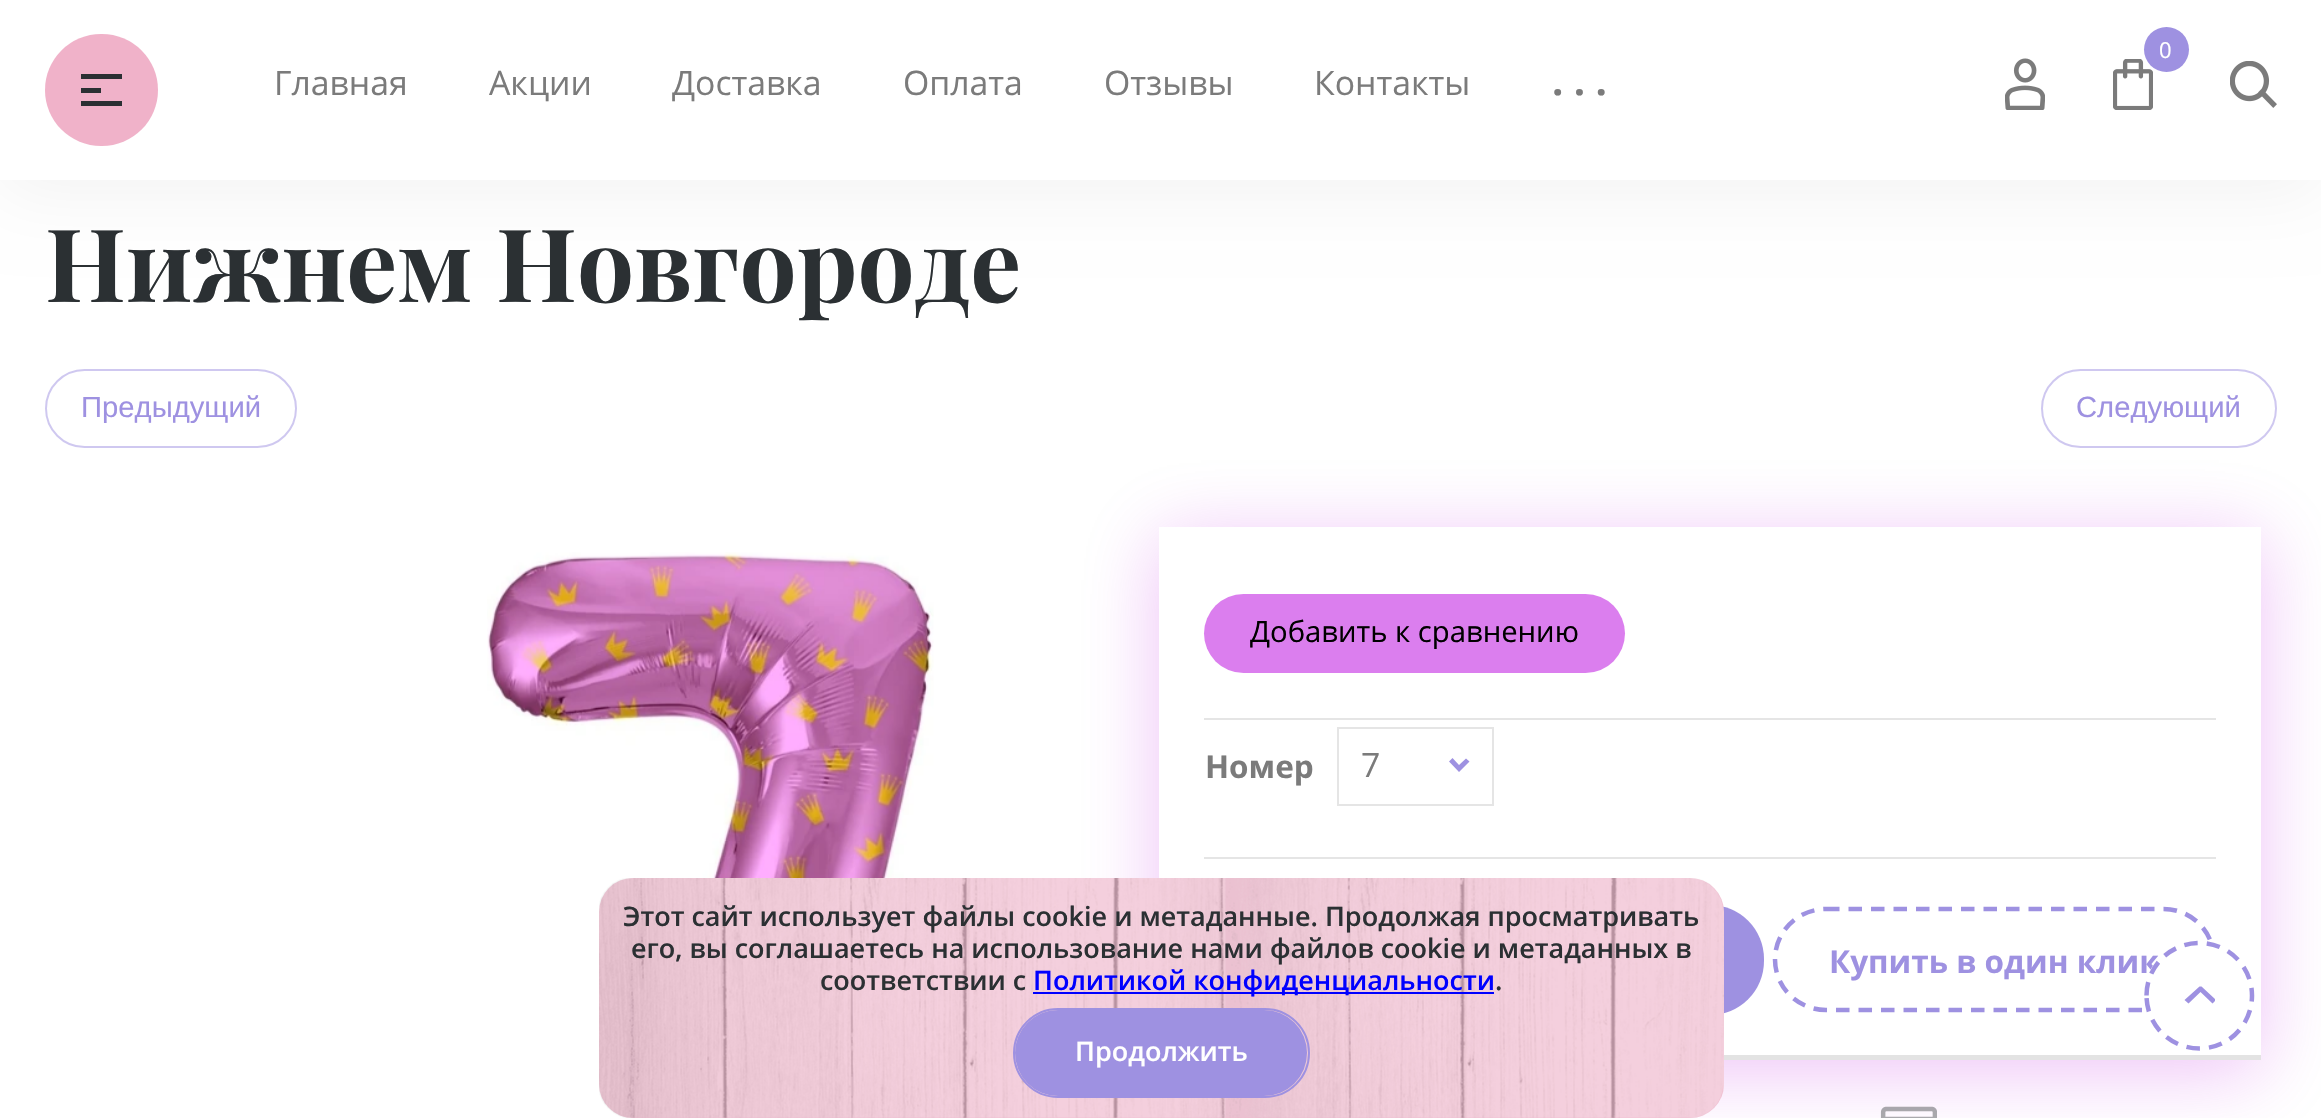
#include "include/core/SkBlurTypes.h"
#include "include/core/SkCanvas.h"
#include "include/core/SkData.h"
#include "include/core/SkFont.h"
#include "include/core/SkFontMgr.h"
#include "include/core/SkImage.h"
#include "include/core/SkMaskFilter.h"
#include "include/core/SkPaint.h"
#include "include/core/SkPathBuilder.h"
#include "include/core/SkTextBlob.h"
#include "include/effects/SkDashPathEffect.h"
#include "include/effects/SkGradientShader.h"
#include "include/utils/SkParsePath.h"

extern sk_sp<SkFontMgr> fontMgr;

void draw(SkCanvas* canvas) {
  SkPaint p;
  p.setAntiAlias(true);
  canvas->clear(SK_ColorWHITE);
  p.setColor(SkColorSetARGB(13, 0, 0, 0));
  p.setMaskFilter(SkMaskFilter::MakeBlur(kNormal_SkBlurStyle, 36));
  canvas->drawRect(SkRect::MakeLTRB(0, 11, 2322, 191), p);
  p.setMaskFilter(nullptr);
  p.setColor(SK_ColorWHITE);
  canvas->drawRect(SkRect::MakeLTRB(0, 0, 2321, 180), p);
  p.setColor(SkColorSetRGB(240, 178, 201));
  canvas->drawRoundRect(SkRect::MakeLTRB(45, 34, 158, 146), 56, 56, p);
  p.setColor(SkColorSetRGB(43, 48, 51));
  canvas->drawRect(SkRect::MakeLTRB(81, 74, 122, 79), p);
  canvas->drawRect(SkRect::MakeLTRB(81, 88, 101, 93), p);
  canvas->drawRect(SkRect::MakeLTRB(81, 101, 122, 106), p);
  canvas->drawImageRect(SkImages::DeferredFromEncodedData(SkData::MakeFromFileName("images/1.png")), SkRect::MakeLTRB(2113, 59, 2153, 110), SkSamplingOptions());
  p.setColor(SkColorSetRGB(158, 145, 225));
  canvas->drawCircle(2166.5f, 49.5f, 22.5f, p);
  canvas->drawImageRect(SkImages::DeferredFromEncodedData(SkData::MakeFromFileName("images/2.png")), SkRect::MakeLTRB(2005, 58, 2045, 110), SkSamplingOptions());
  canvas->drawImageRect(SkImages::DeferredFromEncodedData(SkData::MakeFromFileName("images/3.png")), SkRect::MakeLTRB(2230, 61, 2277, 108), SkSamplingOptions());
  p.setStyle(SkPaint::kStroke_Style);
  p.setStrokeWidth(2);
  p.setColor(SkColorSetRGB(207, 200, 240));
  canvas->drawRoundRect(SkRect::MakeLTRB(46, 370, 296, 447), 38.5f, 38.5f, p);
  canvas->drawRoundRect(SkRect::MakeLTRB(2042, 370, 2276, 447), 38.5f, 38.5f, p);
  canvas->drawImageRect(SkImages::DeferredFromEncodedData(SkData::MakeFromFileName("images/4.png")), SkRect::MakeLTRB(487, 552, 934, 1118), SkSamplingOptions());
  canvas->save();
  canvas->clipPath(SkPathBuilder(SkPathFillType::kEvenOdd).moveTo(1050, 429).lineTo(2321, 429).lineTo(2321, 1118).lineTo(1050, 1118).close().moveTo(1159, 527).lineTo(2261, 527).lineTo(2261, 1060).lineTo(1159, 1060).close().detach(), true);
  p.setStyle(SkPaint::kFill_Style);
  p.setColor(SkColorSetARGB(66, 189, 16, 224));
  p.setMaskFilter(SkMaskFilter::MakeBlur(kNormal_SkBlurStyle, 36));
  canvas->drawRect(SkRect::MakeLTRB(1159, 538, 2261, 1071), p);
  p.setMaskFilter(nullptr);
  canvas->restore();
  p.setColor(SkColorSetRGB(227, 227, 227));
  canvas->drawRect(SkRect::MakeLTRB(1724, 1055, 2261, 1060), p);
  p.setColor(SkColorSetRGB(219, 126, 238));
  canvas->drawRoundRect(SkRect::MakeLTRB(1204, 594, 1625, 673), 39.5f, 39.5f, p);
  p.setColor(SkColorSetRGB(229, 229, 229));
  canvas->drawRect(SkRect::MakeLTRB(1204, 718, 2216, 720), p);
  canvas->drawRect(SkRect::MakeLTRB(1204, 857, 2216, 859), p);
  p.setStyle(SkPaint::kStroke_Style);
  canvas->drawRect(SkRect::MakeLTRB(1338, 728, 1493, 805), p);
  p.setStyle(SkPaint::kFill_Style);
  p.setColor(SkColorSetRGB(158, 145, 225));
  canvas->drawPath(SkPathBuilder(SkPathFillType::kEvenOdd).moveTo(1469.5f, 761.5f).lineTo(1459, 772).lineTo(1449, 761.5f).lineTo(1452.5f, 758).lineTo(1459, 765).lineTo(1466, 758.5f).close().detach(), p);
  canvas->drawRoundRect(SkRect::MakeLTRB(1485, 905, 1764, 1015), 54, 54, p);
  p.setStyle(SkPaint::kStroke_Style);
  p.setStrokeWidth(4.5f);
  p.setPathEffect(SkDashPathEffect::Make({{13.5f, 9}}, 0));
  canvas->drawPath(SkPathBuilder().moveTo(1826, 909).lineTo(2163.5f, 909).cubicTo(2191.5f, 909, 2214, 931.5f, 2214, 959.5f).cubicTo(2214, 987.5f, 2191.5f, 1010, 2163.5f, 1010).lineTo(1826, 1010).cubicTo(1798, 1010, 1775, 987.5f, 1775, 959.5f).cubicTo(1775, 931.5f, 1798, 909, 1826, 909).close().detach(), p);
  p.setPathEffect(nullptr);
  canvas->drawImageRect(SkImages::DeferredFromEncodedData(SkData::MakeFromFileName("images/5.png")), SkRect::MakeLTRB(1880, 1106, 1937, 1118), SkSamplingOptions());
  p.setStyle(SkPaint::kFill_Style);
  p.setColor(SkColorSetRGB(240, 178, 201));
  canvas->drawRoundRect(SkRect::MakeLTRB(599, 878, 1724, 1118), 34, 34, p);
  canvas->drawImageRect(SkImages::DeferredFromEncodedData(SkData::MakeFromFileName("images/6.png")), SkRect::MakeLTRB(599, 878, 1724, 1118), SkSamplingOptions());
  p.setColor(SkColorSetRGB(0, 0, 255));
  canvas->drawRect(SkRect::MakeLTRB(1033, 992, 1494, 994), p);
  p.setStyle(SkPaint::kStroke_Style);
  p.setStrokeWidth(2);
  p.setColor(SkColorSetRGB(158, 145, 225));
  canvas->drawRoundRect(SkRect::MakeLTRB(1014, 1009, 1309, 1097), 44, 44, p);
  p.setStyle(SkPaint::kFill_Style);
  canvas->drawRoundRect(SkRect::MakeLTRB(1015, 1010, 1307, 1096), 43, 43, p);
  SkFont font1(fontMgr->matchFamilyStyle("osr", SkFontStyle::Normal()), 22);
  font1.setSubpixel(true);
  p.setColor(SK_ColorWHITE);
  canvas->drawString("0", 2159, 58, font1, p);
  SkFont font2(fontMgr->matchFamilyStyle("osr", SkFontStyle::Normal()), 33.75f);
  font2.setSubpixel(true);
  p.setColor(SkColorSetRGB(123, 123, 123));
  canvas->drawString("Главная", 274, 95, font2, p);
  canvas->drawString("Акции", 489, 95, font2, p);
  canvas->drawString("Доставка", 672, 95, font2, p);
  canvas->drawString("Оплата", 903, 95, font2, p);
  canvas->drawString("Отзывы", 1104, 95, font2, p);
  canvas->drawString("Контакты", 1314, 95, font2, p);
  SkFont font3(fontMgr->matchFamilyStyle("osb", SkFontStyle::Bold()), 40);
  font3.setSubpixel(true);
  canvas->drawString(". . .", 1552, 95, font3, p);
  SkFont font4(fontMgr->matchFamilyStyle("Playfair Display", SkFontStyle::Bold()), 101.25f);
  font4.setSubpixel(true);
  p.setColor(SkColorSetRGB(43, 48, 51));
  canvas->drawString("Нижнем Новгороде", 45, 302, font4, p);
  SkFont font5(fontMgr->matchFamilyStyle("Liberation Sans", SkFontStyle::Normal()), 29.25f);
  font5.setSubpixel(true);
  p.setColor(SkColorSetRGB(158, 145, 225));
  canvas->drawString("Предыдущий", 81, 417, font5, p);
  canvas->drawString("Следующий", 2076, 417, font5, p);
  SkFont font6(fontMgr->matchFamilyStyle("osr", SkFontStyle::Normal()), 29.25f);
  font6.setSubpixel(true);
  p.setColor(SK_ColorBLACK);
  canvas->drawString("Добавить к сравнению", 1250, 642, font6, p);
  SkFont font7(fontMgr->matchFamilyStyle("osb", SkFontStyle::Bold()), 31.5f);
  font7.setSubpixel(true);
  p.setColor(SkColorSetRGB(123, 123, 123));
  canvas->drawString("Номер", 1205, 778, font7, p);
  canvas->drawString("7", 1361, 777, font2, p);
  p.setColor(SkColorSetRGB(158, 145, 225));
  canvas->drawString("Купить в один клик", 1829, 973, font7, p);
  SkFont font8(fontMgr->matchFamilyStyle("Open Sans", SkFontStyle(600, SkFontStyle::kNormal_Width, SkFontStyle::kUpright_Slant)), 27);
  font8.setSubpixel(true);
  p.setColor(SkColorSetRGB(43, 48, 51));
  canvas->drawString("Этот сайт использует файлы cookie и метаданные. Продолжая просматривать", 623, 926, font8, p);
  canvas->drawString("его, вы соглашаетесь на использование нами файлов cookie и метаданных в", 631, 958, font8, p);
  canvas->drawString("соответствии с", 820, 990, font8, p);
  p.setColor(SkColorSetRGB(0, 0, 255));
  canvas->drawString("Политикой конфиденциальности", 1033, 990, font8, p);
  p.setColor(SkColorSetRGB(43, 48, 51));
  canvas->drawString(".", 1495, 990, font8, p);
  p.setColor(SK_ColorWHITE);
  canvas->drawString("Продолжить", 1075, 1061, font8, p);
  canvas->drawPath(SkPathBuilder().moveTo(2144, 996).cubicTo(2144, 965, 2169, 940, 2199, 940).cubicTo(2230, 940, 2254, 965, 2254, 996).cubicTo(2254, 1026, 2230, 1051, 2199, 1051).cubicTo(2169, 1051, 2144, 1026, 2144, 996).close().detach(), p);
  p.setColor(SkColorSetRGB(158, 145, 225));
  canvas->drawPath(SkPathBuilder().moveTo(2201.5f, 986.5f).lineTo(2199.5f, 986.5f).lineTo(2184.5f, 1000).lineTo(2188.5f, 1003.5f).lineTo(2200.5f, 992).lineTo(2212.5f, 1003.5f).lineTo(2215, 1001).lineTo(2215, 999).close().detach(), p);
  p.setStyle(SkPaint::kStroke_Style);
  p.setStrokeWidth(4.5f);
  p.setPathEffect(SkDashPathEffect::Make({{13.5f, 9}}, 0));
  canvas->drawPath(SkPathBuilder().moveTo(2146.5f, 995.5f).cubicTo(2146.5f, 966.5f, 2170, 943, 2199.5f, 943).cubicTo(2228.5f, 943, 2252, 966.5f, 2252, 995.5f).cubicTo(2252, 1025, 2228.5f, 1048.5f, 2199.5f, 1048.5f).cubicTo(2170, 1048.5f, 2146.5f, 1025, 2146.5f, 995.5f).close().detach(), p);
  p.setPathEffect(nullptr);
}
